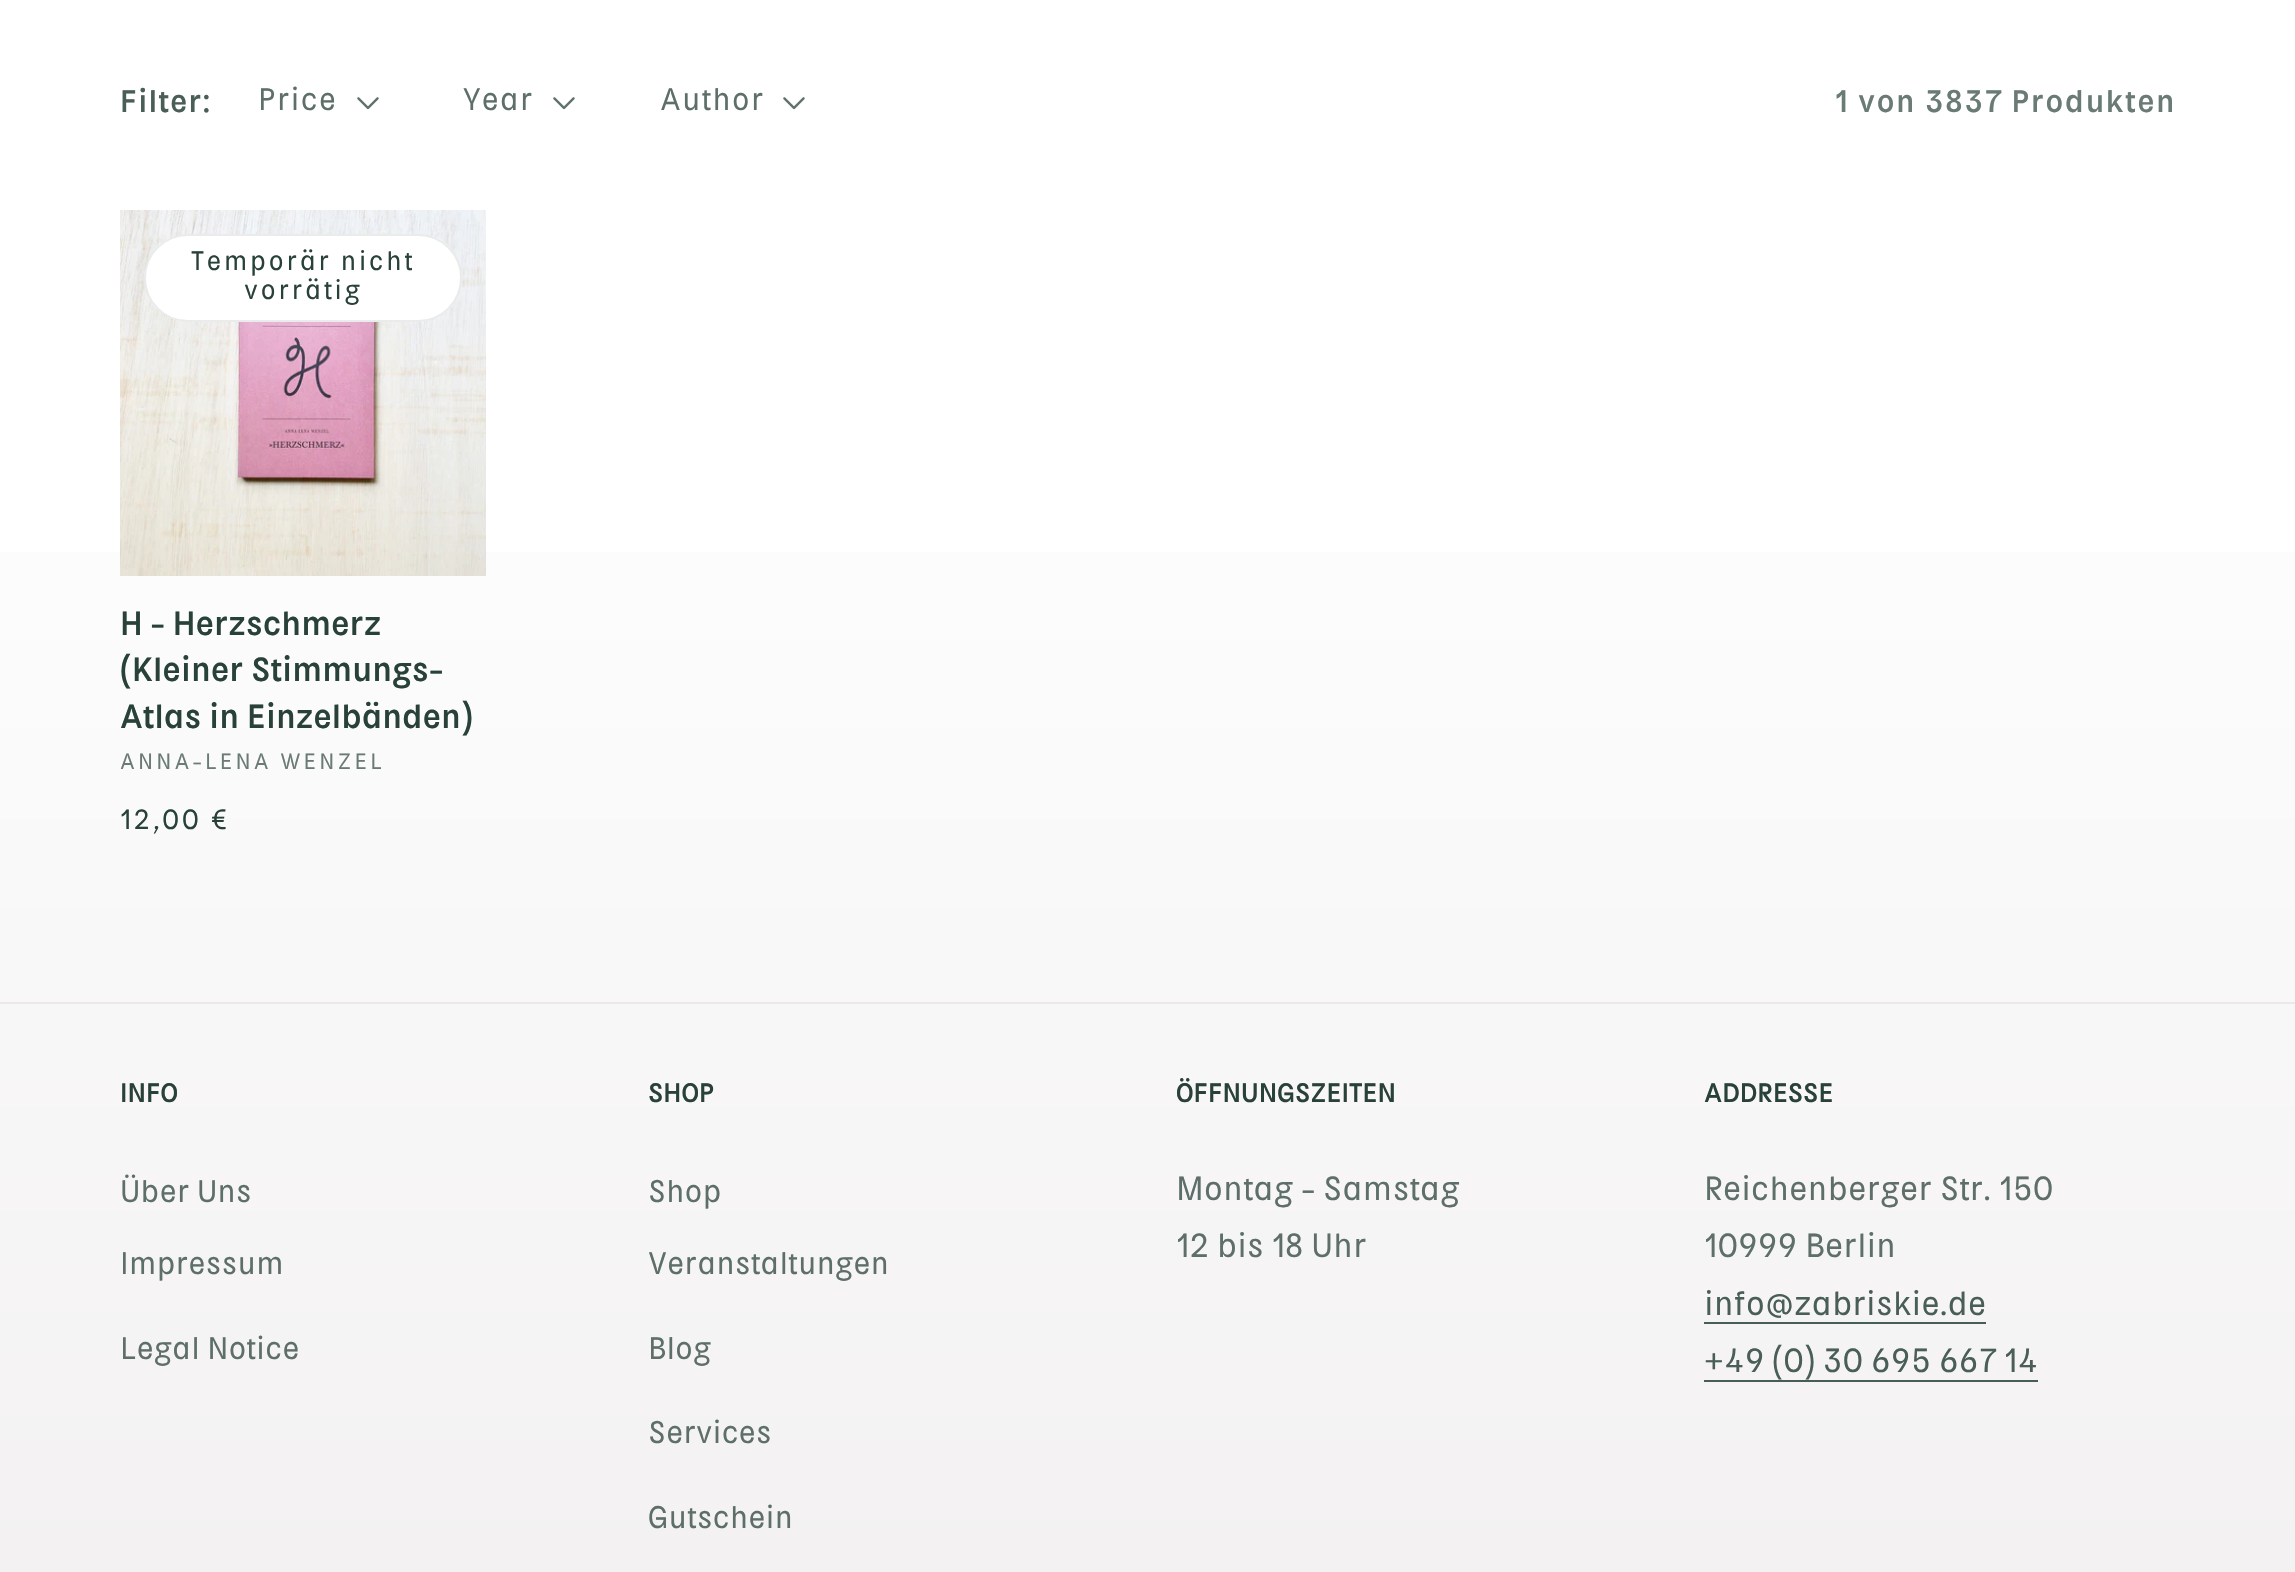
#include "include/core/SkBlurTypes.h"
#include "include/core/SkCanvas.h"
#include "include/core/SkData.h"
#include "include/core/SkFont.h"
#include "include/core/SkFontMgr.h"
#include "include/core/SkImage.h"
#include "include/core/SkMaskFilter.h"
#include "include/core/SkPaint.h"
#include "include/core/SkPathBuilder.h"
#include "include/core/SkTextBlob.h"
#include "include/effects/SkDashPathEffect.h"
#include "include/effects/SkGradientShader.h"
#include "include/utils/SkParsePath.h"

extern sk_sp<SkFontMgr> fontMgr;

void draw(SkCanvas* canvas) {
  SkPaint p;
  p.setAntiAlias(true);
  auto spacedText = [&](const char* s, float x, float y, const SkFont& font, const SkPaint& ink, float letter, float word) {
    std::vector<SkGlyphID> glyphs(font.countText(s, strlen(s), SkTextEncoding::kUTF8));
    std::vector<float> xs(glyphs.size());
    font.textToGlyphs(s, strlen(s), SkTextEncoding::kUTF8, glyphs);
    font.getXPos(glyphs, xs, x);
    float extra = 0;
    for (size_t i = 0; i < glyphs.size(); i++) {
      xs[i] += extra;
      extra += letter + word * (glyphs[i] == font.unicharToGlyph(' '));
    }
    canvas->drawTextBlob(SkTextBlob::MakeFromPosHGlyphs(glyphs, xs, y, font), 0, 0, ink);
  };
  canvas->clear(SK_ColorWHITE);
  {
    const SkColor colors[] = {SkColorSetRGB(243, 241, 241), SK_ColorWHITE, SK_ColorWHITE};
    const float stops[] = {0, 0.79f, 0.97f};
    const SkPoint ends[] = {{1148, 1572}, {1148, 0}};
    p.setShader(SkGradientShader::MakeLinear(ends, colors, stops, 3, SkTileMode::kClamp));
    p.setAlpha(255);
  }
  canvas->drawRect(SkRect::MakeLTRB(0, 552, 2295, 1572), p);
  canvas->drawImageRect(SkImages::DeferredFromEncodedData(SkData::MakeFromFileName("images/1.png")), SkRect::MakeLTRB(357, 97, 379, 110), SkSamplingOptions());
  canvas->drawImageRect(SkImages::DeferredFromEncodedData(SkData::MakeFromFileName("images/1.png")), SkRect::MakeLTRB(553, 97, 575, 110), SkSamplingOptions());
  canvas->drawImageRect(SkImages::DeferredFromEncodedData(SkData::MakeFromFileName("images/1.png")), SkRect::MakeLTRB(783, 97, 805, 110), SkSamplingOptions());
  canvas->drawImageRect(SkImages::DeferredFromEncodedData(SkData::MakeFromFileName("images/2.png")), SkRect::MakeLTRB(120, 210, 486, 576), SkSamplingOptions());
  p.setShader(nullptr);
  p.setColor(SK_ColorWHITE);
  canvas->drawRoundRect(SkRect::MakeLTRB(144, 234, 462, 322), 44, 44, p);
  p.setStyle(SkPaint::kStroke_Style);
  p.setStrokeWidth(2);
  p.setColor(SkColorSetARGB(26, 41, 66, 57));
  canvas->drawRoundRect(SkRect::MakeLTRB(145, 235, 461, 321), 43, 43, p);
  p.setStyle(SkPaint::kFill_Style);
  p.setColor(SkColorSetRGB(232, 233, 232));
  canvas->drawRect(SkRect::MakeLTRB(0, 1002, 2295, 1004), p);
  p.setColor(SkColorSetRGB(72, 93, 85));
  canvas->drawRect(SkRect::MakeLTRB(1704, 1322, 1986, 1324), p);
  canvas->drawRect(SkRect::MakeLTRB(1704, 1380, 2038, 1382), p);
  SkFont font1(fontMgr->matchFamilyStyle("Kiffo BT", SkFontStyle(500, SkFontStyle::kNormal_Width, SkFontStyle::kUpright_Slant)), 33.6f);
  font1.setSubpixel(true);
  p.setColor(SkColorSetRGB(73, 94, 87));
  spacedText("Filter:", 120, 112, font1, p, 1, 0);
  SkFont font2(fontMgr->matchFamilyStyle("Kiffo BT", SkFontStyle::Normal()), 33.6f);
  font2.setSubpixel(true);
  p.setColor(SkColorSetRGB(93, 111, 104));
  spacedText("Price", 258, 110, font2, p, 1, 0);
  spacedText("Year", 463, 110, font2, p, 1, 0);
  spacedText("Author", 660, 110, font2, p, 1, 0);
  p.setColor(SkColorSetRGB(105, 123, 116));
  spacedText("1 von 3837 Produkten", 1835, 112, font1, p, 1.4f, 0);
  SkFont font3(fontMgr->matchFamilyStyle("Kiffo BT", SkFontStyle::Normal()), 28.75f);
  font3.setSubpixel(true);
  p.setColor(SkColorSetRGB(41, 66, 57));
  spacedText("Temporär nicht", 191, 270, font3, p, 2.4f, 0);
  spacedText("vorrätig", 244, 299, font3, p, 2.4f, 0);
  SkFont font4(fontMgr->matchFamilyStyle("Kiffo BT", SkFontStyle(500, SkFontStyle::kNormal_Width, SkFontStyle::kUpright_Slant)), 36);
  font4.setSubpixel(true);
  canvas->drawString("H - Herzschmerz", 120, 635, font4, p);
  canvas->drawString("(Kleiner Stimmungs-", 120, 681, font4, p);
  canvas->drawString("Atlas in Einzelbänden)", 120, 728, font4, p);
  SkFont font5(fontMgr->matchFamilyStyle("Kiffo BT", SkFontStyle::Normal()), 24);
  font5.setSubpixel(true);
  p.setColor(SkColorSetRGB(105, 123, 116));
  spacedText("ANNA-LENA WENZEL", 120, 769, font5, p, 3.1f, 0);
  SkFont font6(fontMgr->matchFamilyStyle("Kiffo BT", SkFontStyle::Normal()), 30);
  font6.setSubpixel(true);
  p.setColor(SkColorSetRGB(41, 66, 57));
  spacedText("12,00 €", 120, 829, font6, p, 2.4f, 0);
  SkFont font7(fontMgr->matchFamilyStyle("Kiffo BT", SkFontStyle(500, SkFontStyle::kNormal_Width, SkFontStyle::kUpright_Slant)), 28.75f);
  font7.setSubpixel(true);
  canvas->drawString("INFO", 120, 1102, font7, p);
  p.setColor(SkColorSetRGB(93, 111, 104));
  canvas->drawString("Über Uns", 120, 1202, font2, p);
  canvas->drawString("Impressum", 120, 1274, font2, p);
  canvas->drawString("Legal Notice", 120, 1359, font2, p);
  p.setColor(SkColorSetRGB(41, 66, 57));
  canvas->drawString("SHOP", 648, 1102, font7, p);
  p.setColor(SkColorSetRGB(93, 111, 104));
  canvas->drawString("Shop", 648, 1202, font2, p);
  canvas->drawString("Veranstaltungen", 648, 1274, font2, p);
  canvas->drawString("Blog", 648, 1359, font2, p);
  canvas->drawString("Services", 648, 1443, font2, p);
  canvas->drawString("Gutschein", 648, 1528, font2, p);
  p.setColor(SkColorSetRGB(41, 66, 57));
  canvas->drawString("ÖFFNUNGSZEITEN", 1176, 1102, font7, p);
  SkFont font8(fontMgr->matchFamilyStyle("Kiffo BT", SkFontStyle::Normal()), 36);
  font8.setSubpixel(true);
  p.setColor(SkColorSetRGB(93, 111, 104));
  canvas->drawString("Montag - Samstag", 1176, 1200, font8, p);
  canvas->drawString("12 bis 18 Uhr", 1176, 1257, font8, p);
  p.setColor(SkColorSetRGB(41, 66, 57));
  canvas->drawString("ADDRESSE", 1704, 1102, font7, p);
  p.setColor(SkColorSetRGB(93, 111, 104));
  canvas->drawString("Reichenberger Str. 150", 1704, 1200, font8, p);
  canvas->drawString("10999 Berlin", 1704, 1257, font8, p);
  p.setColor(SkColorSetRGB(73, 94, 87));
  canvas->drawString("info@zabriskie.de", 1704, 1315, font8, p);
  canvas->drawString("+49 (0) 30 695 667 14", 1704, 1372, font8, p);
}
